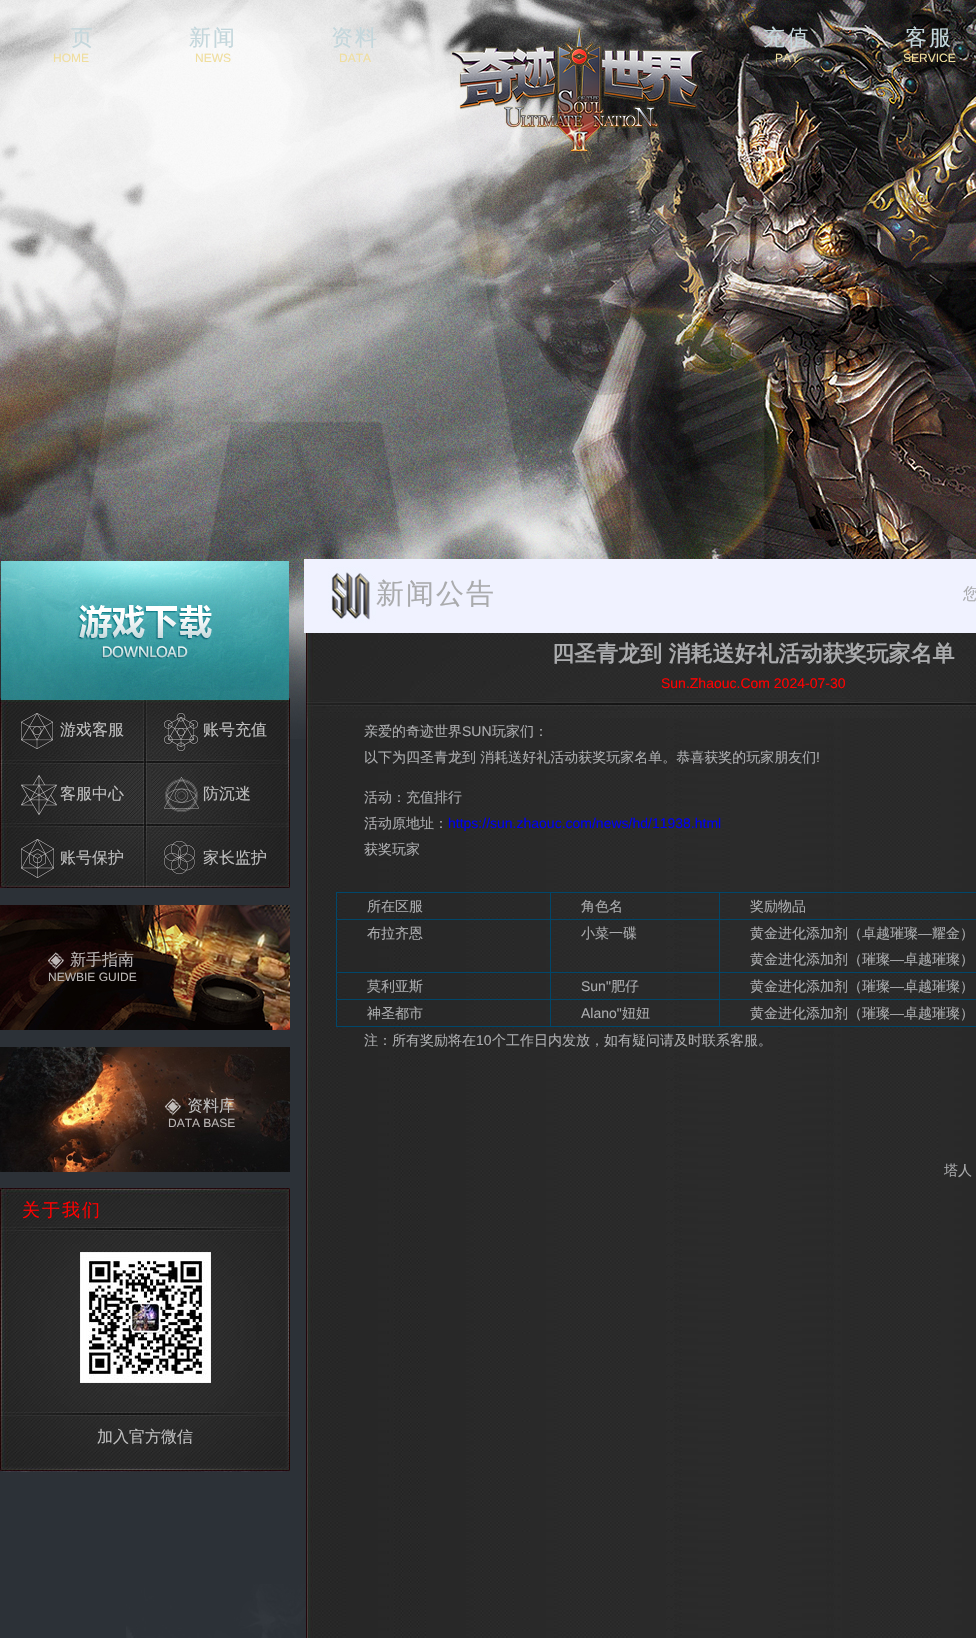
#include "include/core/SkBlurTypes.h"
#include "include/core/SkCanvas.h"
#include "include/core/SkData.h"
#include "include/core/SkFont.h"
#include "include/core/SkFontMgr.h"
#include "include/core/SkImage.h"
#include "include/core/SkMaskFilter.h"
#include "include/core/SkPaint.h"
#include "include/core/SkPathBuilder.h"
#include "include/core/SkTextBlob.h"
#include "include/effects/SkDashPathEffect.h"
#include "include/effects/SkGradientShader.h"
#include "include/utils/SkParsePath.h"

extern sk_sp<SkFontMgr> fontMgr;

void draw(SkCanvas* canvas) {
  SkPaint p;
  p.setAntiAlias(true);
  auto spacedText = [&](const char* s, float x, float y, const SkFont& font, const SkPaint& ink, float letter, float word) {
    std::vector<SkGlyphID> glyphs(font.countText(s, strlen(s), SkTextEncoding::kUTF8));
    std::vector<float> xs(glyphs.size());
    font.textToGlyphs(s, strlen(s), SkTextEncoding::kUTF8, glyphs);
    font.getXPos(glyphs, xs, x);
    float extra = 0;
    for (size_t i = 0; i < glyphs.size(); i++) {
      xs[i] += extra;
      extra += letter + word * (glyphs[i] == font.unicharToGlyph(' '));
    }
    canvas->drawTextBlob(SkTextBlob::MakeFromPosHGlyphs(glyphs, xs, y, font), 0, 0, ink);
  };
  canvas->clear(SkColorSetRGB(44, 49, 55));
  canvas->drawImageRect(SkImages::DeferredFromEncodedData(SkData::MakeFromFileName("images/1.png")), SkRect::MakeLTRB(0, 0, 976, 739), SkSamplingOptions());
  canvas->drawImageRect(SkImages::DeferredFromEncodedData(SkData::MakeFromFileName("images/2.png")), SkRect::MakeLTRB(451, 27, 704, 164), SkSamplingOptions());
  canvas->drawImageRect(SkImages::DeferredFromEncodedData(SkData::MakeFromFileName("images/4.png")), SkRect::MakeLTRB(0, 698, 290, 888), SkSamplingOptions());
  canvas->drawImageRect(SkImages::DeferredFromEncodedData(SkData::MakeFromFileName("images/3.png")), SkRect::MakeLTRB(1, 561, 289, 700), SkSamplingOptions());
  canvas->drawImageRect(SkImages::DeferredFromEncodedData(SkData::MakeFromFileName("images/5.png")), SkRect::MakeLTRB(20, 712, 54, 750), SkSamplingOptions());
  canvas->drawImageRect(SkImages::DeferredFromEncodedData(SkData::MakeFromFileName("images/6.png")), SkRect::MakeLTRB(163, 712, 199, 752), SkSamplingOptions());
  canvas->drawImageRect(SkImages::DeferredFromEncodedData(SkData::MakeFromFileName("images/7.png")), SkRect::MakeLTRB(20, 775, 58, 815), SkSamplingOptions());
  canvas->drawImageRect(SkImages::DeferredFromEncodedData(SkData::MakeFromFileName("images/8.png")), SkRect::MakeLTRB(164, 777, 199, 812), SkSamplingOptions());
  canvas->drawImageRect(SkImages::DeferredFromEncodedData(SkData::MakeFromFileName("images/9.png")), SkRect::MakeLTRB(20, 838, 55, 879), SkSamplingOptions());
  canvas->drawImageRect(SkImages::DeferredFromEncodedData(SkData::MakeFromFileName("images/10.png")), SkRect::MakeLTRB(163, 840, 196, 874), SkSamplingOptions());
  canvas->drawImageRect(SkImages::DeferredFromEncodedData(SkData::MakeFromFileName("images/11.png")), SkRect::MakeLTRB(0, 905, 290, 1030), SkSamplingOptions());
  canvas->drawImageRect(SkImages::DeferredFromEncodedData(SkData::MakeFromFileName("images/12.png")), SkRect::MakeLTRB(48, 952, 64, 970), SkSamplingOptions());
  canvas->drawImageRect(SkImages::DeferredFromEncodedData(SkData::MakeFromFileName("images/13.png")), SkRect::MakeLTRB(0, 1047, 290, 1172), SkSamplingOptions());
  canvas->drawImageRect(SkImages::DeferredFromEncodedData(SkData::MakeFromFileName("images/14.png")), SkRect::MakeLTRB(165, 1098, 181, 1116), SkSamplingOptions());
  canvas->drawImageRect(SkImages::DeferredFromEncodedData(SkData::MakeFromFileName("images/15.png")), SkRect::MakeLTRB(0, 1188, 290, 1472), SkSamplingOptions());
  canvas->drawImageRect(SkImages::DeferredFromEncodedData(SkData::MakeFromFileName("images/16.png")), SkRect::MakeLTRB(80, 1252, 211, 1383), SkSamplingOptions());
  canvas->drawImageRect(SkImages::DeferredFromEncodedData(SkData::MakeFromFileName("images/17.png")), SkRect::MakeLTRB(304, 559, 976, 633), SkSamplingOptions());
  canvas->drawImageRect(SkImages::DeferredFromEncodedData(SkData::MakeFromFileName("images/18.png")), SkRect::MakeLTRB(306, 633, 976, 718), SkSamplingOptions());
  canvas->drawImageRect(SkImages::DeferredFromEncodedData(SkData::MakeFromFileName("images/19.png")), SkRect::MakeLTRB(306, 718, 976, 1638), SkSamplingOptions());
  p.setColor(SkColorSetRGB(0, 71, 107));
  canvas->drawRect(SkRect::MakeLTRB(336, 892, 976, 893), p);
  canvas->drawRect(SkRect::MakeLTRB(336, 1026, 976, 1027), p);
  canvas->drawRect(SkRect::MakeLTRB(336, 892, 337, 1027), p);
  canvas->drawRect(SkRect::MakeLTRB(719, 919, 976, 920), p);
  canvas->drawRect(SkRect::MakeLTRB(719, 972, 976, 973), p);
  canvas->drawRect(SkRect::MakeLTRB(719, 999, 976, 1000), p);
  canvas->drawRect(SkRect::MakeLTRB(719, 999, 720, 1027), p);
  canvas->drawRect(SkRect::MakeLTRB(550, 999, 720, 1000), p);
  canvas->drawRect(SkRect::MakeLTRB(719, 972, 720, 1000), p);
  canvas->drawRect(SkRect::MakeLTRB(550, 972, 720, 973), p);
  canvas->drawRect(SkRect::MakeLTRB(719, 919, 720, 973), p);
  canvas->drawRect(SkRect::MakeLTRB(550, 919, 720, 920), p);
  canvas->drawRect(SkRect::MakeLTRB(550, 999, 551, 1027), p);
  canvas->drawRect(SkRect::MakeLTRB(336, 999, 551, 1000), p);
  canvas->drawRect(SkRect::MakeLTRB(550, 972, 551, 1000), p);
  canvas->drawRect(SkRect::MakeLTRB(336, 972, 551, 973), p);
  canvas->drawRect(SkRect::MakeLTRB(550, 919, 551, 973), p);
  canvas->drawRect(SkRect::MakeLTRB(336, 919, 551, 920), p);
  canvas->drawRect(SkRect::MakeLTRB(550, 892, 551, 920), p);
  canvas->drawRect(SkRect::MakeLTRB(719, 892, 720, 920), p);
  canvas->drawImageRect(SkImages::DeferredFromEncodedData(SkData::MakeFromFileName("images/20.png")), SkRect::MakeLTRB(126, 1584, 306, 1638), SkSamplingOptions());
  SkFont font1(fontMgr->matchFamilyStyle("WenQuanYi Zen Hei", SkFontStyle(500, SkFontStyle::kNormal_Width, SkFontStyle::kUpright_Slant)), 22);
  font1.setSubpixel(true);
  p.setColor(SkColorSetRGB(196, 215, 220));
  spacedText("页", 71, 45, font1, p, 2, 0);
  SkFont font2(fontMgr->matchFamilyStyle("Liberation Sans", SkFontStyle::Normal()), 12);
  font2.setSubpixel(true);
  p.setColor(SkColorSetRGB(240, 222, 158));
  canvas->drawString("HOME", 53, 62, font2, p);
  p.setColor(SkColorSetRGB(196, 215, 220));
  spacedText("新闻", 189, 45, font1, p, 2, 0);
  p.setColor(SkColorSetRGB(240, 222, 158));
  canvas->drawString("NEWS", 195, 62, font2, p);
  p.setColor(SkColorSetRGB(196, 215, 220));
  spacedText("资料", 331, 45, font1, p, 2, 0);
  p.setColor(SkColorSetRGB(240, 222, 158));
  canvas->drawString("DATA", 339, 62, font2, p);
  p.setColor(SkColorSetRGB(196, 215, 220));
  spacedText("充值", 763, 45, font1, p, 2, 0);
  p.setColor(SkColorSetRGB(240, 222, 158));
  canvas->drawString("PAY", 775, 62, font2, p);
  p.setColor(SkColorSetRGB(196, 215, 220));
  spacedText("客服", 905, 45, font1, p, 2, 0);
  p.setColor(SkColorSetRGB(240, 222, 158));
  canvas->drawString("SERVICE", 903, 62, font2, p);
  SkFont font3(fontMgr->matchFamilyStyle("WenQuanYi Zen Hei", SkFontStyle(500, SkFontStyle::kNormal_Width, SkFontStyle::kUpright_Slant)), 16);
  font3.setSubpixel(true);
  p.setColor(SkColorSetRGB(191, 191, 191));
  canvas->drawString("游戏客服", 60, 735, font3, p);
  canvas->drawString("账号充值", 203, 735, font3, p);
  canvas->drawString("客服中心", 60, 799, font3, p);
  canvas->drawString("防沉迷", 203, 799, font3, p);
  canvas->drawString("账号保护", 60, 863, font3, p);
  canvas->drawString("家长监护", 203, 863, font3, p);
  p.setColor(SkColorSetRGB(186, 182, 181));
  canvas->drawString("新手指南", 70, 965, font3, p);
  canvas->drawString("NEWBIE GUIDE", 48, 981, font2, p);
  p.setColor(SkColorSetRGB(191, 191, 191));
  canvas->drawString("资料库", 187, 1111, font3, p);
  p.setColor(SkColorSetRGB(186, 182, 181));
  canvas->drawString("DATA BASE", 168, 1127, font2, p);
  SkFont font4(fontMgr->matchFamilyStyle("WenQuanYi Zen Hei", SkFontStyle(500, SkFontStyle::kNormal_Width, SkFontStyle::kUpright_Slant)), 18);
  font4.setSubpixel(true);
  p.setColor(SkColorSetRGB(255, 0, 0));
  spacedText("关于我们", 22, 1216, font4, p, 2, 0);
  p.setColor(SkColorSetRGB(191, 191, 191));
  canvas->drawString("加入官方微信", 97, 1442, font3, p);
  SkFont font5(fontMgr->matchFamilyStyle("WenQuanYi Zen Hei", SkFontStyle(500, SkFontStyle::kNormal_Width, SkFontStyle::kUpright_Slant)), 28);
  font5.setSubpixel(true);
  p.setColor(SkColorSetRGB(170, 171, 173));
  spacedText("新闻公告", 376, 603, font5, p, 2, 0);
  canvas->drawString("您", 963, 599, font3, p);
  SkFont font6(fontMgr->matchFamilyStyle("WenQuanYi Zen Hei", SkFontStyle::Bold()), 22);
  font6.setSubpixel(true);
  canvas->drawString("四圣青龙到 消耗送好礼活动获奖玩家名单", 552, 661, font6, p);
  SkFont font7(fontMgr->matchFamilyStyle("Liberation Sans", SkFontStyle::Normal()), 14);
  font7.setSubpixel(true);
  p.setColor(SkColorSetRGB(255, 0, 0));
  canvas->drawString("Sun.Zhaouc.Com 2024-07-30", 661, 688, font7, p);
  SkFont font8(fontMgr->matchFamilyStyle("WenQuanYi Zen Hei", SkFontStyle(500, SkFontStyle::kNormal_Width, SkFontStyle::kUpright_Slant)), 14);
  font8.setSubpixel(true);
  p.setColor(SkColorSetRGB(170, 171, 173));
  canvas->drawString("亲爱的奇迹世界", 364, 736, font8, p);
  canvas->drawString("SUN", 462, 736, font7, p);
  canvas->drawString("玩家们：", 492, 736, font8, p);
  canvas->drawString("以下为四圣青龙到 消耗送好礼活动获奖玩家名单。恭喜获奖的玩家朋友们", 364, 762, font8, p);
  canvas->drawString("!", 816, 762, font7, p);
  canvas->drawString("活动：充值排行", 364, 802, font8, p);
  canvas->drawString("活动原地址：", 364, 828, font8, p);
  p.setColor(SkColorSetRGB(0, 0, 238));
  canvas->drawString("https://sun.zhaouc.com/news/hd/11938.html", 448, 828, font7, p);
  p.setColor(SkColorSetRGB(170, 171, 173));
  canvas->drawString("获奖玩家", 364, 854, font8, p);
  canvas->drawString("所在区服", 367, 911, font8, p);
  canvas->drawString("角色名", 581, 911, font8, p);
  canvas->drawString("奖励物品", 750, 911, font8, p);
  canvas->drawString("布拉齐恩", 367, 938, font8, p);
  canvas->drawString("小菜一碟", 581, 938, font8, p);
  canvas->drawString("黄金进化添加剂（卓越璀璨", 750, 938, font8, p);
  canvas->drawString("—", 918, 938, font7, p);
  canvas->drawString("耀金）", 932, 938, font8, p);
  canvas->drawString("黄金进化添加剂（璀璨", 750, 964, font8, p);
  canvas->drawString("—", 890, 964, font7, p);
  canvas->drawString("卓越璀璨）", 904, 964, font8, p);
  canvas->drawString("莫利亚斯", 367, 991, font8, p);
  canvas->drawString("Sun\"", 581, 991, font7, p);
  canvas->drawString("肥仔", 611, 991, font8, p);
  canvas->drawString("黄金进化添加剂（璀璨", 750, 991, font8, p);
  canvas->drawString("—", 890, 991, font7, p);
  canvas->drawString("卓越璀璨）", 904, 991, font8, p);
  canvas->drawString("神圣都市", 367, 1018, font8, p);
  canvas->drawString("Alano\"", 581, 1018, font7, p);
  canvas->drawString("妞妞", 622, 1018, font8, p);
  canvas->drawString("黄金进化添加剂（璀璨", 750, 1018, font8, p);
  canvas->drawString("—", 890, 1018, font7, p);
  canvas->drawString("卓越璀璨）", 904, 1018, font8, p);
  canvas->drawString("注：所有奖励将在", 364, 1045, font8, p);
  canvas->drawString("10", 476, 1045, font7, p);
  canvas->drawString("个工作日内发放，如有疑问请及时联系客服。", 492, 1045, font8, p);
  canvas->drawString("塔人", 944, 1175, font8, p);
}
